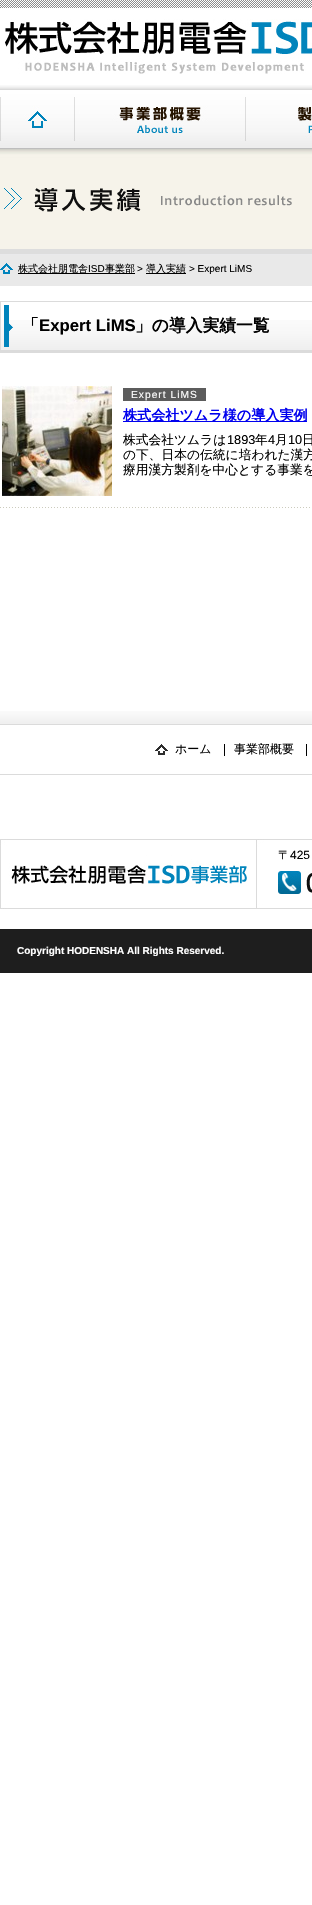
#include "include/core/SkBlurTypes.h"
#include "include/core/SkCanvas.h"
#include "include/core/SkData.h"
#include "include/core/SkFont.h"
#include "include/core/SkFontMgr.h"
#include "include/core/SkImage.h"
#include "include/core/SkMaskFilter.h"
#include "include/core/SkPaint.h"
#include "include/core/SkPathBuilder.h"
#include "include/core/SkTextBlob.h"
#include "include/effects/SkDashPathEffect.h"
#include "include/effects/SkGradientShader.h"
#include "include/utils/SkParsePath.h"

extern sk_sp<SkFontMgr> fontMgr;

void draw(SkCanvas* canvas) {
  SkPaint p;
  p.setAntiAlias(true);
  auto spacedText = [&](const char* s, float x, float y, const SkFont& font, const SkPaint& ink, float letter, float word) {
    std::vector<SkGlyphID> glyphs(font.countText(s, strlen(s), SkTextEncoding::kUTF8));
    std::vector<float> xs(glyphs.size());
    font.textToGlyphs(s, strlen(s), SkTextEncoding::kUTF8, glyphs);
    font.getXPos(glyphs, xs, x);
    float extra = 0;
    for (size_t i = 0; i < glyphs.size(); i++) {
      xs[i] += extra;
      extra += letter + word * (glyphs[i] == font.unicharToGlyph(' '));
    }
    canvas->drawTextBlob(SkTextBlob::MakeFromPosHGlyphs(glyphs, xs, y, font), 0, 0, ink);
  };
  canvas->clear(SK_ColorWHITE);
  canvas->drawImageRect(SkImages::DeferredFromEncodedData(SkData::MakeFromFileName("images/1.png")), SkRect::MakeLTRB(0, 85, 312, 286), SkSamplingOptions());
  canvas->drawImageRect(SkImages::DeferredFromEncodedData(SkData::MakeFromFileName("images/2.png")), SkRect::MakeLTRB(0, 0, 312, 8), SkSamplingOptions());
  canvas->drawImageRect(SkImages::DeferredFromEncodedData(SkData::MakeFromFileName("images/3.png")), SkRect::MakeLTRB(5, 19, 312, 74), SkSamplingOptions());
  canvas->drawImageRect(SkImages::DeferredFromEncodedData(SkData::MakeFromFileName("images/4.png")), SkRect::MakeLTRB(0, 97, 312, 141), SkSamplingOptions());
  canvas->drawImageRect(SkImages::DeferredFromEncodedData(SkData::MakeFromFileName("images/5.png")), SkRect::MakeLTRB(4, 188, 292, 212), SkSamplingOptions());
  canvas->drawImageRect(SkImages::DeferredFromEncodedData(SkData::MakeFromFileName("images/6.png")), SkRect::MakeLTRB(0, 263, 13, 274), SkSamplingOptions());
  p.setColor(SK_ColorBLACK);
  canvas->drawRect(SkRect::MakeLTRB(18, 273, 135, 274), p);
  canvas->drawRect(SkRect::MakeLTRB(146, 273, 186, 274), p);
  canvas->drawImageRect(SkImages::DeferredFromEncodedData(SkData::MakeFromFileName("images/7.png")), SkRect::MakeLTRB(1, 320, 312, 350), SkSamplingOptions());
  p.setColor(SkColorSetRGB(219, 219, 219));
  canvas->drawRect(SkRect::MakeLTRB(0, 301, 312, 302), p);
  canvas->drawRect(SkRect::MakeLTRB(0, 350, 312, 353), p);
  canvas->drawRect(SkRect::MakeLTRB(0, 301, 1, 353), p);
  canvas->drawImageRect(SkImages::DeferredFromEncodedData(SkData::MakeFromFileName("images/8.png")), SkRect::MakeLTRB(4, 305, 13, 347), SkSamplingOptions());
  canvas->drawImageRect(SkImages::DeferredFromEncodedData(SkData::MakeFromFileName("images/9.png")), SkRect::MakeLTRB(0, 507, 310, 508), SkSamplingOptions());
  canvas->drawImageRect(SkImages::DeferredFromEncodedData(SkData::MakeFromFileName("images/10.png")), SkRect::MakeLTRB(2, 386, 112, 496), SkSamplingOptions());
  p.setColor(SkColorSetRGB(92, 92, 92));
  canvas->drawRect(SkRect::MakeLTRB(123, 388, 206, 401), p);
  p.setColor(SkColorSetRGB(0, 0, 238));
  canvas->drawRect(SkRect::MakeLTRB(123, 421, 307, 422), p);
  canvas->drawImageRect(SkImages::DeferredFromEncodedData(SkData::MakeFromFileName("images/11.png")), SkRect::MakeLTRB(0, 711, 312, 725), SkSamplingOptions());
  p.setColor(SkColorSetRGB(219, 219, 219));
  canvas->drawRect(SkRect::MakeLTRB(0, 774, 312, 775), p);
  canvas->drawImageRect(SkImages::DeferredFromEncodedData(SkData::MakeFromFileName("images/12.png")), SkRect::MakeLTRB(155, 744, 168, 755), SkSamplingOptions());
  p.setColor(SK_ColorBLACK);
  canvas->drawRect(SkRect::MakeLTRB(224, 744, 225, 756), p);
  canvas->drawRect(SkRect::MakeLTRB(306, 744, 307, 756), p);
  canvas->drawImageRect(SkImages::DeferredFromEncodedData(SkData::MakeFromFileName("images/13.png")), SkRect::MakeLTRB(0, 839, 312, 909), SkSamplingOptions());
  canvas->drawImageRect(SkImages::DeferredFromEncodedData(SkData::MakeFromFileName("images/14.png")), SkRect::MakeLTRB(278, 871, 312, 894), SkSamplingOptions());
  p.setColor(SkColorSetRGB(30, 30, 30));
  canvas->drawRect(SkRect::MakeLTRB(0, 929, 312, 973), p);
  SkFont font1(fontMgr->matchFamilyStyle("WenQuanYi Zen Hei", SkFontStyle(500, SkFontStyle::kNormal_Width, SkFontStyle::kUpright_Slant)), 10);
  font1.setSubpixel(true);
  p.setColor(SK_ColorBLACK);
  canvas->drawString("株式会社朋電舎", 18, 272, font1, p);
  SkFont font2(fontMgr->matchFamilyStyle("Liberation Sans", SkFontStyle::Normal()), 10);
  font2.setSubpixel(true);
  canvas->drawString("ISD", 88, 272, font2, p);
  canvas->drawString("事業部", 105, 272, font1, p);
  canvas->drawString(">", 137, 272, font2, p);
  canvas->drawString("導入実績", 146, 272, font1, p);
  canvas->drawString("> Expert LiMS", 189, 272, font2, p);
  SkFont font3(fontMgr->matchFamilyStyle("WenQuanYi Zen Hei", SkFontStyle::Bold()), 16.75f);
  font3.setSubpixel(true);
  canvas->drawString("「", 22, 331, font3, p);
  SkFont font4(fontMgr->matchFamilyStyle("Liberation Sans", SkFontStyle::Bold()), 16.75f);
  font4.setSubpixel(true);
  canvas->drawString("Expert LiMS", 39, 331, font4, p);
  canvas->drawString("」の導入実績一覧", 135, 331, font3, p);
  SkFont font5(fontMgr->matchFamilyStyle("Liberation Sans", SkFontStyle::Normal()), 10.25f);
  font5.setSubpixel(true);
  p.setColor(SK_ColorWHITE);
  spacedText("Expert LiMS", 131, 398, font5, p, 1, 0);
  SkFont font6(fontMgr->matchFamilyStyle("WenQuanYi Zen Hei", SkFontStyle::Bold()), 14.1f);
  font6.setSubpixel(true);
  p.setColor(SkColorSetRGB(0, 0, 238));
  canvas->drawString("株式会社ツムラ様の導入実例", 123, 420, font6, p);
  SkFont font7(fontMgr->matchFamilyStyle("WenQuanYi Zen Hei", SkFontStyle(500, SkFontStyle::kNormal_Width, SkFontStyle::kUpright_Slant)), 12.75f);
  font7.setSubpixel(true);
  p.setColor(SK_ColorBLACK);
  canvas->drawString("株式会社ツムラは", 123, 444, font7, p);
  SkFont font8(fontMgr->matchFamilyStyle("Liberation Sans", SkFontStyle::Normal()), 12.75f);
  font8.setSubpixel(true);
  canvas->drawString("1893", 227, 444, font8, p);
  canvas->drawString("年", 255, 444, font7, p);
  canvas->drawString("4", 268, 444, font8, p);
  canvas->drawString("月", 275, 444, font7, p);
  canvas->drawString("10", 288, 444, font8, p);
  canvas->drawString("日", 302, 444, font7, p);
  canvas->drawString("の下、日本の伝統に培われた漢方", 123, 459, font7, p);
  canvas->drawString("療用漢方製剤を中心とする事業を", 123, 474, font7, p);
  SkFont font9(fontMgr->matchFamilyStyle("WenQuanYi Zen Hei", SkFontStyle(500, SkFontStyle::kNormal_Width, SkFontStyle::kUpright_Slant)), 12);
  font9.setSubpixel(true);
  canvas->drawString("ホーム", 175, 753, font9, p);
  canvas->drawString("事業部概要", 234, 753, font9, p);
  canvas->drawString("〒", 278, 859, font9, p);
  SkFont font10(fontMgr->matchFamilyStyle("Liberation Sans", SkFontStyle::Normal()), 12);
  font10.setSubpixel(true);
  canvas->drawString("425", 290, 859, font10, p);
  SkFont font11(fontMgr->matchFamilyStyle("Liberation Sans", SkFontStyle::Bold()), 10);
  font11.setSubpixel(true);
  p.setColor(SK_ColorWHITE);
  canvas->drawString("Copyright HODENSHA All Rights Reserved.", 17, 954, font11, p);
}
